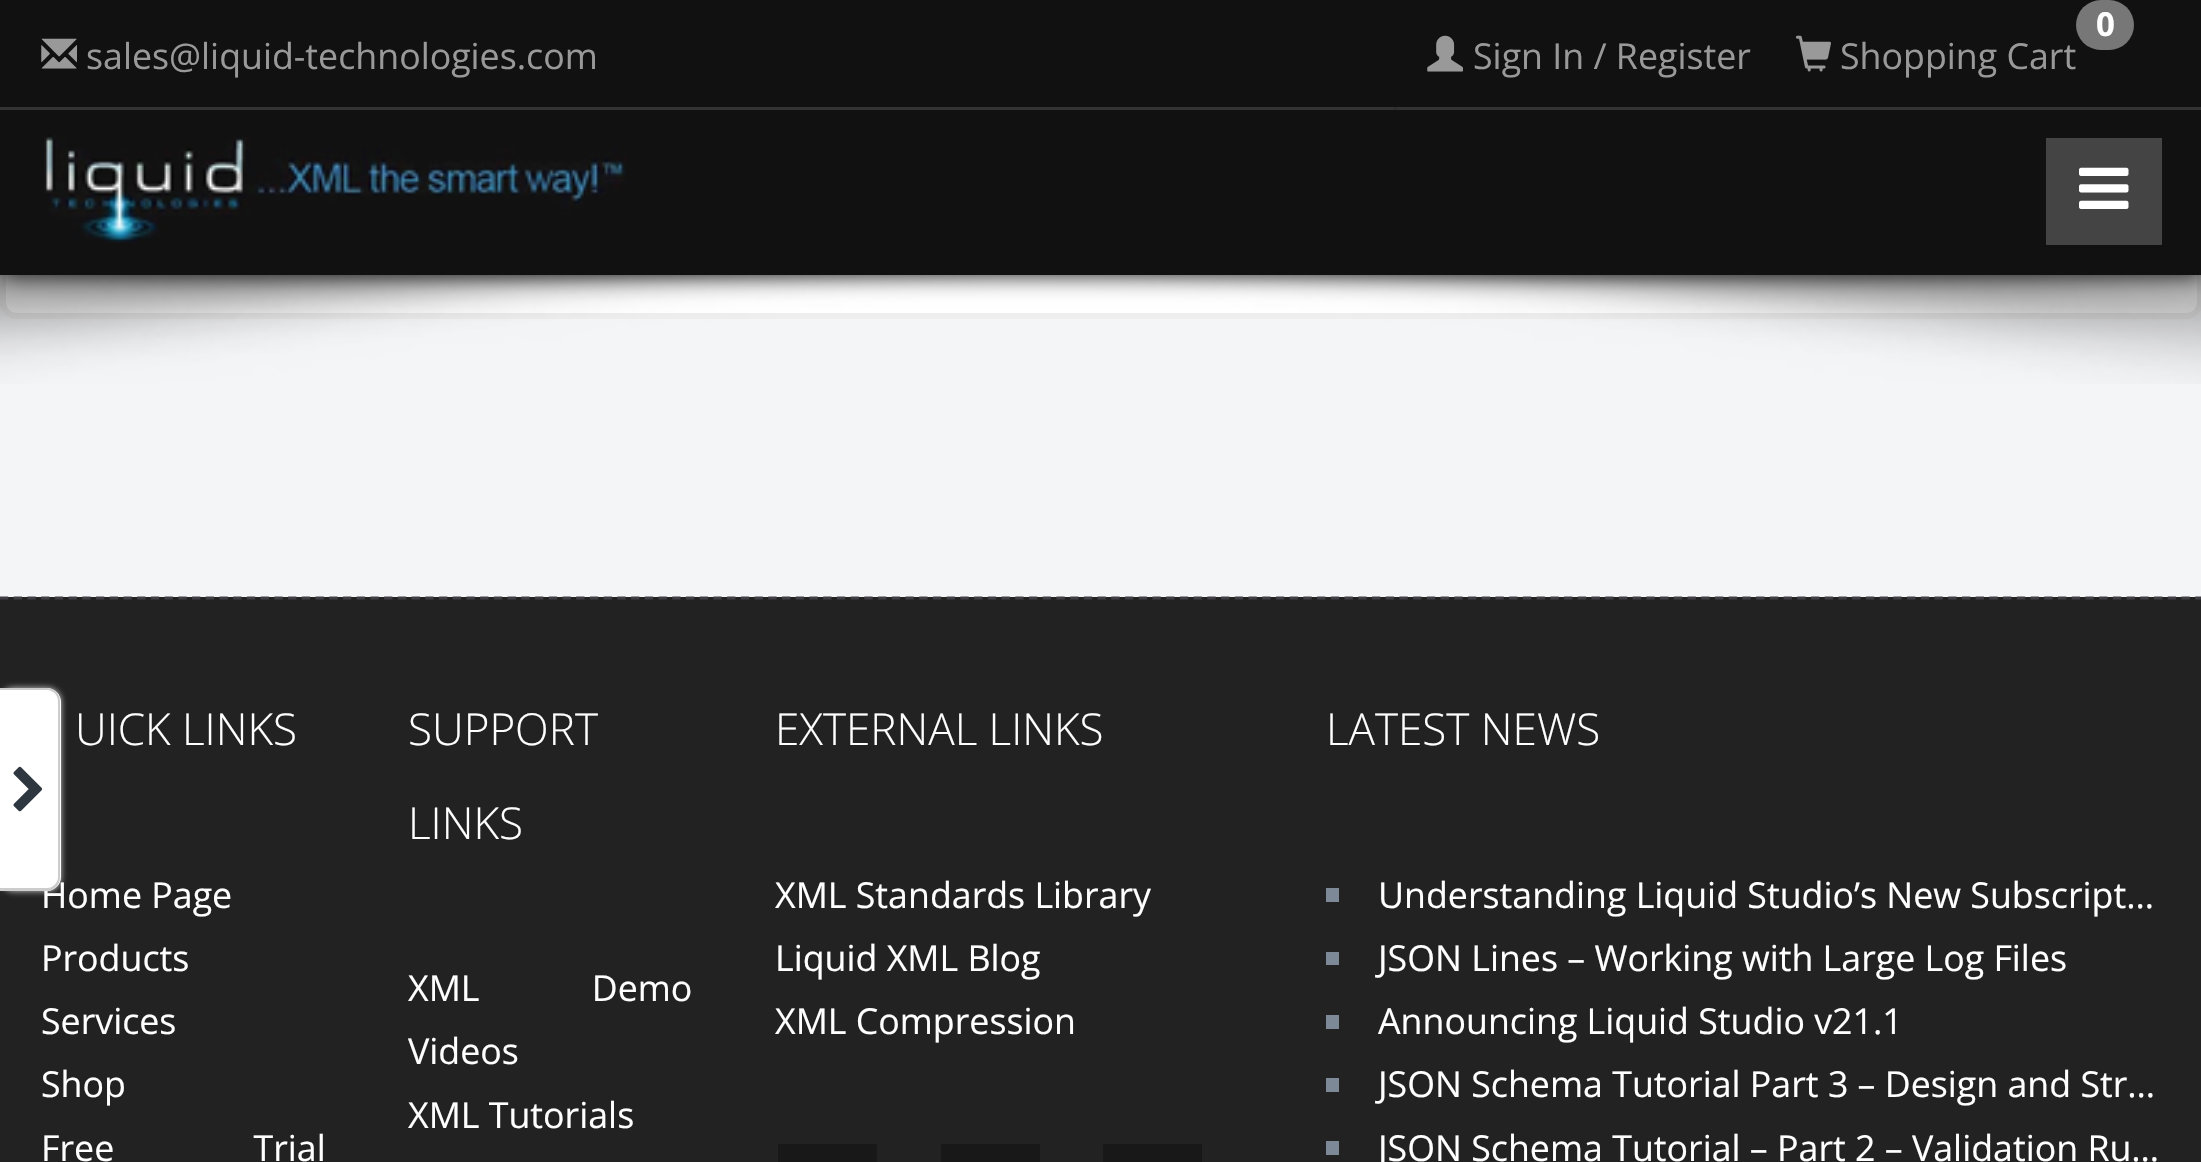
#include "include/core/SkBlurTypes.h"
#include "include/core/SkCanvas.h"
#include "include/core/SkData.h"
#include "include/core/SkFont.h"
#include "include/core/SkFontMgr.h"
#include "include/core/SkImage.h"
#include "include/core/SkMaskFilter.h"
#include "include/core/SkPaint.h"
#include "include/core/SkPathBuilder.h"
#include "include/core/SkTextBlob.h"
#include "include/effects/SkDashPathEffect.h"
#include "include/effects/SkGradientShader.h"
#include "include/utils/SkParsePath.h"

extern sk_sp<SkFontMgr> fontMgr;

void draw(SkCanvas* canvas) {
  SkPaint p;
  p.setAntiAlias(true);
  auto spacedText = [&](const char* s, float x, float y, const SkFont& font, const SkPaint& ink, float letter, float word) {
    std::vector<SkGlyphID> glyphs(font.countText(s, strlen(s), SkTextEncoding::kUTF8));
    std::vector<float> xs(glyphs.size());
    font.textToGlyphs(s, strlen(s), SkTextEncoding::kUTF8, glyphs);
    font.getXPos(glyphs, xs, x);
    float extra = 0;
    for (size_t i = 0; i < glyphs.size(); i++) {
      xs[i] += extra;
      extra += letter + word * (glyphs[i] == font.unicharToGlyph(' '));
    }
    canvas->drawTextBlob(SkTextBlob::MakeFromPosHGlyphs(glyphs, xs, y, font), 0, 0, ink);
  };
  canvas->clear(SkColorSetRGB(34, 34, 34));
  p.setColor(SkColorSetRGB(244, 245, 247));
  canvas->drawRect(SkRect::MakeLTRB(0, 302, 2201, 597), p);
  p.setColor(SK_ColorWHITE);
  canvas->drawRoundRect(SkRect::MakeLTRB(3, -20, 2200, 316), 14, 14, p);
  p.setStyle(SkPaint::kStroke_Style);
  p.setStrokeWidth(6);
  p.setColor(SkColorSetRGB(238, 238, 238));
  canvas->drawRoundRect(SkRect::MakeLTRB(3, -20, 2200, 316), 14, 14, p);
  canvas->drawImageRect(SkImages::DeferredFromEncodedData(SkData::MakeFromFileName("images/6.png")), SkRect::MakeLTRB(0, 275, 2201, 384), SkSamplingOptions());
  p.setStyle(SkPaint::kFill_Style);
  p.setColor(SkColorSetRGB(17, 17, 17));
  p.setMaskFilter(SkMaskFilter::MakeBlur(kNormal_SkBlurStyle, 11));
  canvas->drawRect(SkRect::MakeLTRB(0, 110, 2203, 275), p);
  p.setMaskFilter(nullptr);
  canvas->drawRect(SkRect::MakeLTRB(0, 0, 2201, 107), p);
  p.setColor(SkColorSetRGB(51, 51, 51));
  canvas->drawRect(SkRect::MakeLTRB(0, 107, 2201, 110), p);
  canvas->drawImageRect(SkImages::DeferredFromEncodedData(SkData::MakeFromFileName("images/1.png")), SkRect::MakeLTRB(41, 38, 77, 69), SkSamplingOptions());
  p.setColor(SkColorSetARGB(26, 0, 0, 0));
  canvas->drawRect(SkRect::MakeLTRB(1394, 107, 1397, 110), p);
  canvas->drawImageRect(SkImages::DeferredFromEncodedData(SkData::MakeFromFileName("images/2.png")), SkRect::MakeLTRB(1427, 35, 1463, 72), SkSamplingOptions());
  p.setColor(SkColorSetRGB(119, 119, 119));
  canvas->drawRoundRect(SkRect::MakeLTRB(2076, 0, 2134, 50), 25, 25, p);
  canvas->drawImageRect(SkImages::DeferredFromEncodedData(SkData::MakeFromFileName("images/3.png")), SkRect::MakeLTRB(1796, 35, 1831, 72), SkSamplingOptions());
  p.setColor(SkColorSetRGB(17, 17, 17));
  canvas->drawRect(SkRect::MakeLTRB(0, 110, 2201, 275), p);
  canvas->drawImageRect(SkImages::DeferredFromEncodedData(SkData::MakeFromFileName("images/4.png")), SkRect::MakeLTRB(44, 135, 627, 244), SkSamplingOptions());
  p.setColor(SkColorSetRGB(68, 68, 68));
  canvas->drawRect(SkRect::MakeLTRB(2046, 138, 2162, 245), p);
  canvas->drawImageRect(SkImages::DeferredFromEncodedData(SkData::MakeFromFileName("images/5.png")), SkRect::MakeLTRB(2079, 167, 2129, 209), SkSamplingOptions());
  p.setColor(SkColorSetRGB(204, 204, 204));
  p.setMaskFilter(SkMaskFilter::MakeBlur(kNormal_SkBlurStyle, 3));
  canvas->drawRoundRect(SkRect::MakeLTRB(0, 688, 61, 891), 14, 14, p);
  p.setMaskFilter(nullptr);
  p.setColor(SK_ColorWHITE);
  canvas->drawPath(SkPathBuilder().moveTo(0, 688).lineTo(47, 688).cubicTo(54.5f, 688, 61, 694.5f, 61, 702).lineTo(61, 877).cubicTo(61, 884.5f, 54.5f, 891, 47, 891).lineTo(0, 891).close().detach(), p);
  p.setStyle(SkPaint::kStroke_Style);
  p.setStrokeWidth(2.8f);
  p.setColor(SkColorSetRGB(64, 62, 68));
  p.setPathEffect(SkDashPathEffect::Make({{8.25f, 5.47f}}, 0));
  canvas->drawPath(SkPathBuilder().moveTo(0, 598).lineTo(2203, 598).detach(), p);
  p.setPathEffect(nullptr);
  p.setStyle(SkPaint::kFill_Style);
  p.setColor(SkColorSetRGB(24, 24, 24));
  canvas->drawRect(SkRect::MakeLTRB(778, 1144, 877, 1162), p);
  canvas->drawRect(SkRect::MakeLTRB(941, 1144, 1040, 1162), p);
  canvas->drawRect(SkRect::MakeLTRB(1103, 1144, 1202, 1162), p);
  p.setColor(SkColorSetRGB(126, 137, 152));
  canvas->drawRect(SkRect::MakeLTRB(1326, 888, 1339, 902), p);
  canvas->drawRect(SkRect::MakeLTRB(1326, 952, 1339, 965), p);
  canvas->drawRect(SkRect::MakeLTRB(1326, 1015, 1339, 1029), p);
  canvas->drawRect(SkRect::MakeLTRB(1326, 1078, 1339, 1092), p);
  canvas->drawRect(SkRect::MakeLTRB(1326, 1141, 1339, 1155), p);
  SkFont font1(fontMgr->matchFamilyStyle("Open Sans", SkFontStyle::Normal()), 35.75f);
  font1.setSubpixel(true);
  p.setColor(SkColorSetRGB(153, 153, 153));
  canvas->drawString("sales@liquid-technologies.com", 86, 69, font1, p);
  canvas->drawString("Sign In / Register", 1473, 69, font1, p);
  SkFont font2(fontMgr->matchFamilyStyle("Open Sans", SkFontStyle::Bold()), 33);
  font2.setSubpixel(true);
  p.setColor(SK_ColorWHITE);
  canvas->drawString("0", 2096, 36, font2, p);
  p.setColor(SkColorSetRGB(153, 153, 153));
  canvas->drawString("Shopping Cart", 1840, 69, font1, p);
  SkFont font3(fontMgr->matchFamilyStyle("Open Sans", SkFontStyle(300, SkFontStyle::kNormal_Width, SkFontStyle::kUpright_Slant)), 44);
  font3.setSubpixel(true);
  p.setColor(SK_ColorWHITE);
  canvas->drawString("UICK LINKS", 75, 745, font3, p);
  canvas->drawString("Home Page", 41, 908, font1, p);
  p.setColor(SkColorSetRGB(204, 204, 204));
  canvas->drawPath(SkPathBuilder(SkPathFillType::kEvenOdd).moveTo(0, 688).lineTo(47, 688).cubicTo(54, 688, 60, 694, 60, 701).lineTo(60, 877).cubicTo(60, 885, 54, 891, 47, 891).lineTo(0, 891).close().moveTo(0, 690).lineTo(47, 690).cubicTo(53, 690, 58, 695, 58, 701).lineTo(58, 877).cubicTo(58, 883, 53, 888, 47, 888).lineTo(0, 888).close().detach(), p);
  canvas->drawImageRect(SkImages::DeferredFromEncodedData(SkData::MakeFromFileName("images/7.png")), SkRect::MakeLTRB(13, 766, 43, 812), SkSamplingOptions());
  p.setColor(SK_ColorWHITE);
  canvas->drawString("Products", 41, 971, font1, p);
  canvas->drawString("Services", 41, 1034, font1, p);
  canvas->drawString("Shop", 41, 1097, font1, p);
  spacedText("Free Trial", 41, 1161, font1, p, 0, 130);
  canvas->drawString("SUPPORT", 408, 745, font3, p);
  canvas->drawString("LINKS", 408, 839, font3, p);
  spacedText("XML Demo", 408, 1001, font1, p, 0, 103);
  canvas->drawString("Videos", 408, 1064, font1, p);
  canvas->drawString("XML Tutorials", 408, 1128, font1, p);
  canvas->drawString("EXTERNAL LINKS", 775, 745, font3, p);
  canvas->drawString("XML Standards Library", 775, 908, font1, p);
  canvas->drawString("Liquid XML Blog", 775, 971, font1, p);
  canvas->drawString("XML Compression", 775, 1034, font1, p);
  canvas->drawString("LATEST NEWS", 1326, 745, font3, p);
  canvas->drawString("Understanding Liquid Studio’s New Subscript…", 1378, 908, font1, p);
  canvas->drawString("JSON Lines – Working with Large Log Files", 1378, 971, font1, p);
  canvas->drawString("Announcing Liquid Studio v21.1", 1378, 1034, font1, p);
  canvas->drawString("JSON Schema Tutorial Part 3 – Design and Str…", 1378, 1097, font1, p);
  canvas->drawString("JSON Schema Tutorial – Part 2 – Validation Ru…", 1378, 1161, font1, p);
}
